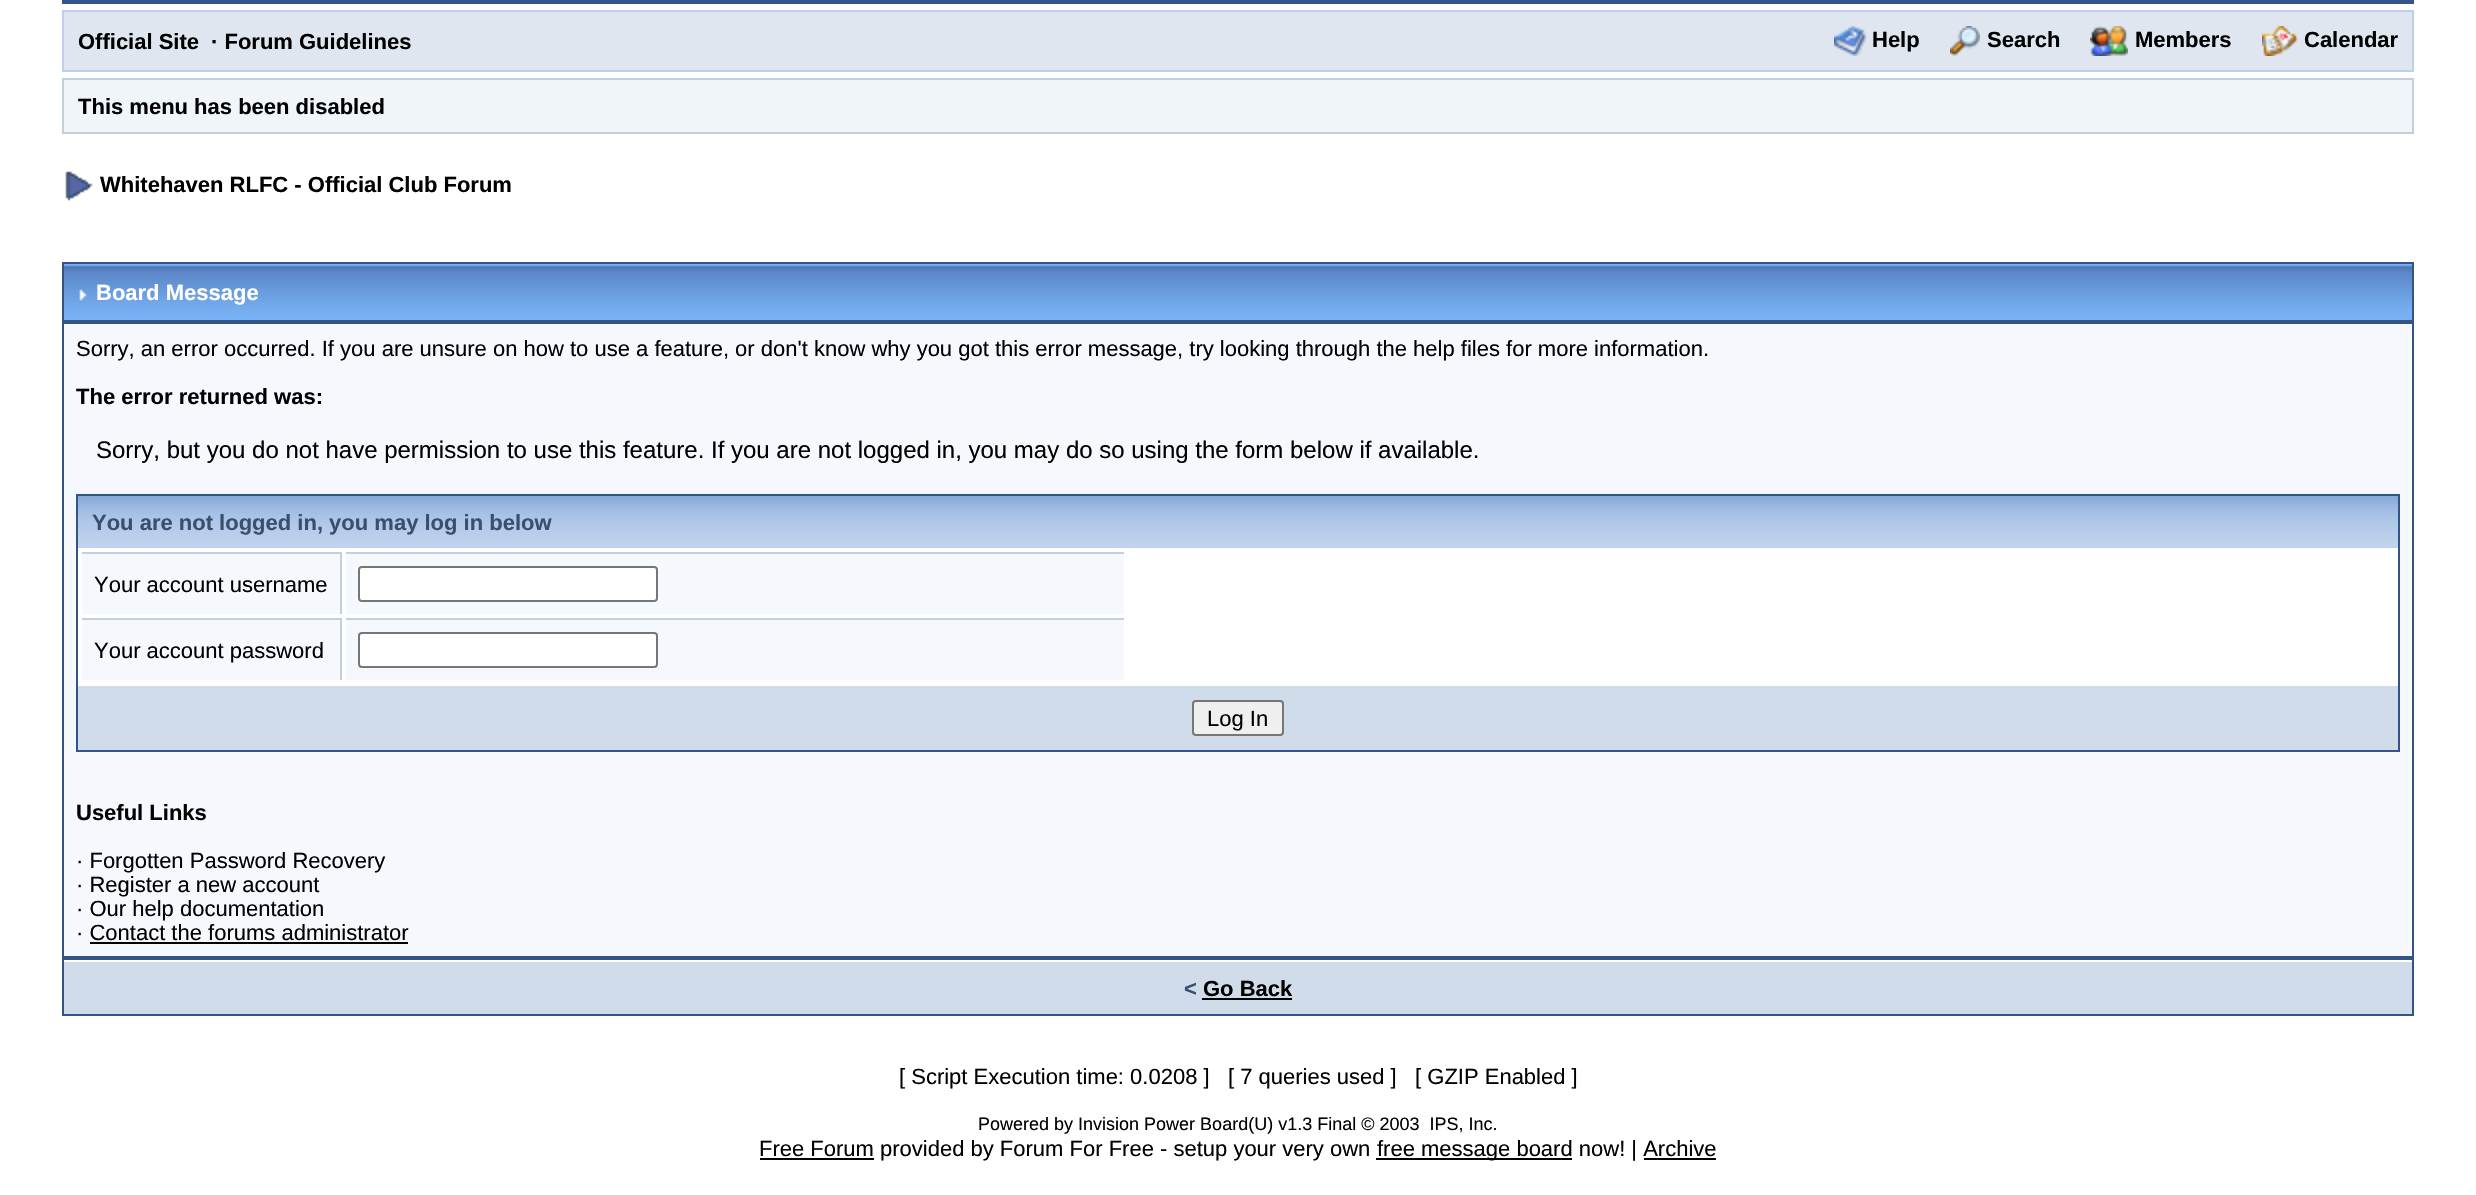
#include "include/core/SkBlurTypes.h"
#include "include/core/SkCanvas.h"
#include "include/core/SkData.h"
#include "include/core/SkFont.h"
#include "include/core/SkFontMgr.h"
#include "include/core/SkImage.h"
#include "include/core/SkMaskFilter.h"
#include "include/core/SkPaint.h"
#include "include/core/SkPathBuilder.h"
#include "include/core/SkTextBlob.h"
#include "include/effects/SkDashPathEffect.h"
#include "include/effects/SkGradientShader.h"
#include "include/utils/SkParsePath.h"

extern sk_sp<SkFontMgr> fontMgr;

void draw(SkCanvas* canvas) {
  SkPaint p;
  p.setAntiAlias(true);
  canvas->clear(SK_ColorWHITE);
  p.setColor(SkColorSetRGB(52, 84, 135));
  canvas->drawRect(SkRect::MakeLTRB(62, 0, 2414, 4), p);
  p.setColor(SkColorSetRGB(223, 230, 239));
  canvas->drawRect(SkRect::MakeLTRB(63, 11, 2413, 71), p);
  p.setStyle(SkPaint::kStroke_Style);
  p.setStrokeWidth(2);
  p.setColor(SkColorSetRGB(188, 208, 237));
  canvas->drawRect(SkRect::MakeLTRB(63, 11, 2413, 71), p);
  canvas->drawImageRect(SkImages::DeferredFromEncodedData(SkData::MakeFromFileName("images/1.png")), SkRect::MakeLTRB(1834, 26, 1866, 56), SkSamplingOptions());
  canvas->drawImageRect(SkImages::DeferredFromEncodedData(SkData::MakeFromFileName("images/2.png")), SkRect::MakeLTRB(1950, 26, 1980, 56), SkSamplingOptions());
  canvas->drawImageRect(SkImages::DeferredFromEncodedData(SkData::MakeFromFileName("images/3.png")), SkRect::MakeLTRB(2090, 26, 2128, 56), SkSamplingOptions());
  canvas->drawImageRect(SkImages::DeferredFromEncodedData(SkData::MakeFromFileName("images/4.png")), SkRect::MakeLTRB(2262, 26, 2298, 56), SkSamplingOptions());
  p.setStyle(SkPaint::kFill_Style);
  p.setColor(SkColorSetRGB(240, 245, 250));
  canvas->drawRect(SkRect::MakeLTRB(63, 79, 2413, 133), p);
  p.setStyle(SkPaint::kStroke_Style);
  p.setColor(SkColorSetRGB(194, 207, 223));
  canvas->drawRect(SkRect::MakeLTRB(63, 79, 2413, 133), p);
  canvas->drawImageRect(SkImages::DeferredFromEncodedData(SkData::MakeFromFileName("images/5.png")), SkRect::MakeLTRB(65, 171, 93, 201), SkSamplingOptions());
  p.setColor(SkColorSetRGB(52, 84, 135));
  canvas->drawRect(SkRect::MakeLTRB(63, 263, 2413, 321), p);
  canvas->drawImageRect(SkImages::DeferredFromEncodedData(SkData::MakeFromFileName("images/6.png")), SkRect::MakeLTRB(64, 264, 2412, 320), SkSamplingOptions());
  canvas->drawImageRect(SkImages::DeferredFromEncodedData(SkData::MakeFromFileName("images/7.png")), SkRect::MakeLTRB(79, 289, 87, 301), SkSamplingOptions());
  p.setStyle(SkPaint::kFill_Style);
  p.setColor(SkColorSetRGB(245, 249, 253));
  canvas->drawRect(SkRect::MakeLTRB(63, 323, 2413, 957), p);
  p.setStyle(SkPaint::kStroke_Style);
  p.setColor(SkColorSetRGB(52, 84, 135));
  canvas->drawRect(SkRect::MakeLTRB(63, 323, 2413, 957), p);
  p.setStyle(SkPaint::kFill_Style);
  p.setColor(SK_ColorWHITE);
  canvas->drawRect(SkRect::MakeLTRB(78, 548, 2398, 686), p);
  p.setStyle(SkPaint::kStroke_Style);
  p.setColor(SkColorSetRGB(52, 84, 135));
  canvas->drawRect(SkRect::MakeLTRB(77, 495, 2399, 751), p);
  canvas->drawImageRect(SkImages::DeferredFromEncodedData(SkData::MakeFromFileName("images/8.png")), SkRect::MakeLTRB(78, 496, 2398, 548), SkSamplingOptions());
  p.setStyle(SkPaint::kFill_Style);
  p.setColor(SkColorSetRGB(245, 249, 253));
  canvas->drawRect(SkRect::MakeLTRB(82, 554, 340, 614), p);
  p.setColor(SkColorSetRGB(194, 207, 223));
  canvas->drawRect(SkRect::MakeLTRB(82, 552, 342, 554), p);
  canvas->drawRect(SkRect::MakeLTRB(340, 552, 342, 614), p);
  p.setColor(SkColorSetRGB(245, 249, 253));
  canvas->drawRect(SkRect::MakeLTRB(346, 554, 1124, 614), p);
  p.setColor(SkColorSetRGB(194, 207, 223));
  canvas->drawRect(SkRect::MakeLTRB(346, 552, 1124, 554), p);
  p.setColor(SK_ColorWHITE);
  canvas->drawRoundRect(SkRect::MakeLTRB(359, 567, 657, 601), 3, 3, p);
  p.setStyle(SkPaint::kStroke_Style);
  p.setColor(SkColorSetRGB(118, 118, 118));
  canvas->drawRoundRect(SkRect::MakeLTRB(359, 567, 657, 601), 3, 3, p);
  p.setStyle(SkPaint::kFill_Style);
  p.setColor(SkColorSetRGB(245, 249, 253));
  canvas->drawRect(SkRect::MakeLTRB(82, 620, 340, 680), p);
  p.setColor(SkColorSetRGB(194, 207, 223));
  canvas->drawRect(SkRect::MakeLTRB(82, 618, 342, 620), p);
  canvas->drawRect(SkRect::MakeLTRB(340, 618, 342, 680), p);
  p.setColor(SkColorSetRGB(245, 249, 253));
  canvas->drawRect(SkRect::MakeLTRB(346, 620, 1124, 680), p);
  p.setColor(SkColorSetRGB(194, 207, 223));
  canvas->drawRect(SkRect::MakeLTRB(346, 618, 1124, 620), p);
  p.setColor(SK_ColorWHITE);
  canvas->drawRoundRect(SkRect::MakeLTRB(359, 633, 657, 667), 3, 3, p);
  p.setStyle(SkPaint::kStroke_Style);
  p.setColor(SkColorSetRGB(118, 118, 118));
  canvas->drawRoundRect(SkRect::MakeLTRB(359, 633, 657, 667), 3, 3, p);
  p.setStyle(SkPaint::kFill_Style);
  p.setColor(SkColorSetRGB(209, 220, 235));
  canvas->drawRect(SkRect::MakeLTRB(78, 686, 2398, 750), p);
  p.setColor(SkColorSetRGB(239, 239, 239));
  canvas->drawRoundRect(SkRect::MakeLTRB(1193, 701, 1283, 735), 3, 3, p);
  p.setStyle(SkPaint::kStroke_Style);
  p.setColor(SkColorSetRGB(118, 118, 118));
  canvas->drawRoundRect(SkRect::MakeLTRB(1193, 701, 1283, 735), 3, 3, p);
  p.setStyle(SkPaint::kFill_Style);
  p.setColor(SK_ColorBLACK);
  canvas->drawRect(SkRect::MakeLTRB(90, 942, 408, 944), p);
  p.setStyle(SkPaint::kStroke_Style);
  p.setColor(SkColorSetRGB(52, 84, 135));
  canvas->drawRect(SkRect::MakeLTRB(63, 959, 2413, 1015), p);
  p.setStyle(SkPaint::kFill_Style);
  p.setColor(SkColorSetRGB(209, 220, 235));
  canvas->drawRect(SkRect::MakeLTRB(64, 962, 2412, 1014), p);
  p.setColor(SK_ColorBLACK);
  canvas->drawRect(SkRect::MakeLTRB(1202, 998, 1292, 1000), p);
  canvas->drawRect(SkRect::MakeLTRB(760, 1158, 874, 1160), p);
  canvas->drawRect(SkRect::MakeLTRB(1376, 1158, 1572, 1160), p);
  canvas->drawRect(SkRect::MakeLTRB(1644, 1158, 1716, 1160), p);
  SkFont font1(fontMgr->matchFamilyStyle("Liberation Sans", SkFontStyle::Bold()), 22);
  font1.setSubpixel(true);
  canvas->drawString("Official Site", 78, 49, font1, p);
  canvas->drawString("· Forum Guidelines", 211, 49, font1, p);
  canvas->drawString("Help", 1872, 47, font1, p);
  canvas->drawString("Search", 1987, 47, font1, p);
  canvas->drawString("Members", 2135, 47, font1, p);
  canvas->drawString("Calendar", 2304, 47, font1, p);
  canvas->drawString("This menu has been disabled", 78, 114, font1, p);
  canvas->drawString("Whitehaven RLFC - Official Club Forum", 100, 192, font1, p);
  p.setColor(SK_ColorWHITE);
  canvas->drawString("Board Message", 96, 300, font1, p);
  SkFont font2(fontMgr->matchFamilyStyle("Liberation Sans", SkFontStyle::Normal()), 22);
  font2.setSubpixel(true);
  p.setColor(SK_ColorBLACK);
  canvas->drawString("Sorry, an error occurred. If you are unsure on how to use a feature, or don't know why you got this error message, try looking through the help files for more information.", 76, 356, font2, p);
  canvas->drawString("The error returned was:", 76, 404, font1, p);
  SkFont font3(fontMgr->matchFamilyStyle("Liberation Sans", SkFontStyle::Normal()), 24);
  font3.setSubpixel(true);
  canvas->drawString("Sorry, but you do not have permission to use this feature. If you are not logged in, you may do so using the form below if available.", 96, 458, font3, p);
  p.setColor(SkColorSetRGB(58, 79, 108));
  canvas->drawString("You are not logged in, you may log in below", 92, 530, font1, p);
  p.setColor(SK_ColorBLACK);
  canvas->drawString("Your account username", 94, 592, font2, p);
  canvas->drawString("Your account password", 94, 658, font2, p);
  canvas->drawString("Log In", 1207, 726, font2, p);
  canvas->drawString("Useful Links", 76, 820, font1, p);
  canvas->drawString("· Forgotten Password Recovery", 76, 868, font2, p);
  canvas->drawString("· Register a new account", 76, 892, font2, p);
  canvas->drawString("· Our help documentation", 76, 916, font2, p);
  canvas->drawString("· Contact the forums administrator", 76, 940, font2, p);
  p.setColor(SkColorSetRGB(58, 79, 108));
  canvas->drawString("<", 1184, 996, font1, p);
  p.setColor(SK_ColorBLACK);
  canvas->drawString("Go Back", 1203, 996, font1, p);
  canvas->drawString("[ Script Execution time: 0.0208 ]   [ 7 queries used ]   [ GZIP Enabled ]", 899, 1084, font2, p);
  SkFont font4(fontMgr->matchFamilyStyle("Liberation Sans", SkFontStyle::Normal()), 18);
  font4.setSubpixel(true);
  canvas->drawString("Powered by Invision Power Board(U) v1.3 Final © 2003  IPS, Inc.", 978, 1130, font4, p);
  canvas->drawString("Free Forum provided by Forum For Free - setup your very own", 759, 1156, font2, p);
  canvas->drawString("free message board now! | Archive", 1377, 1156, font2, p);
}
